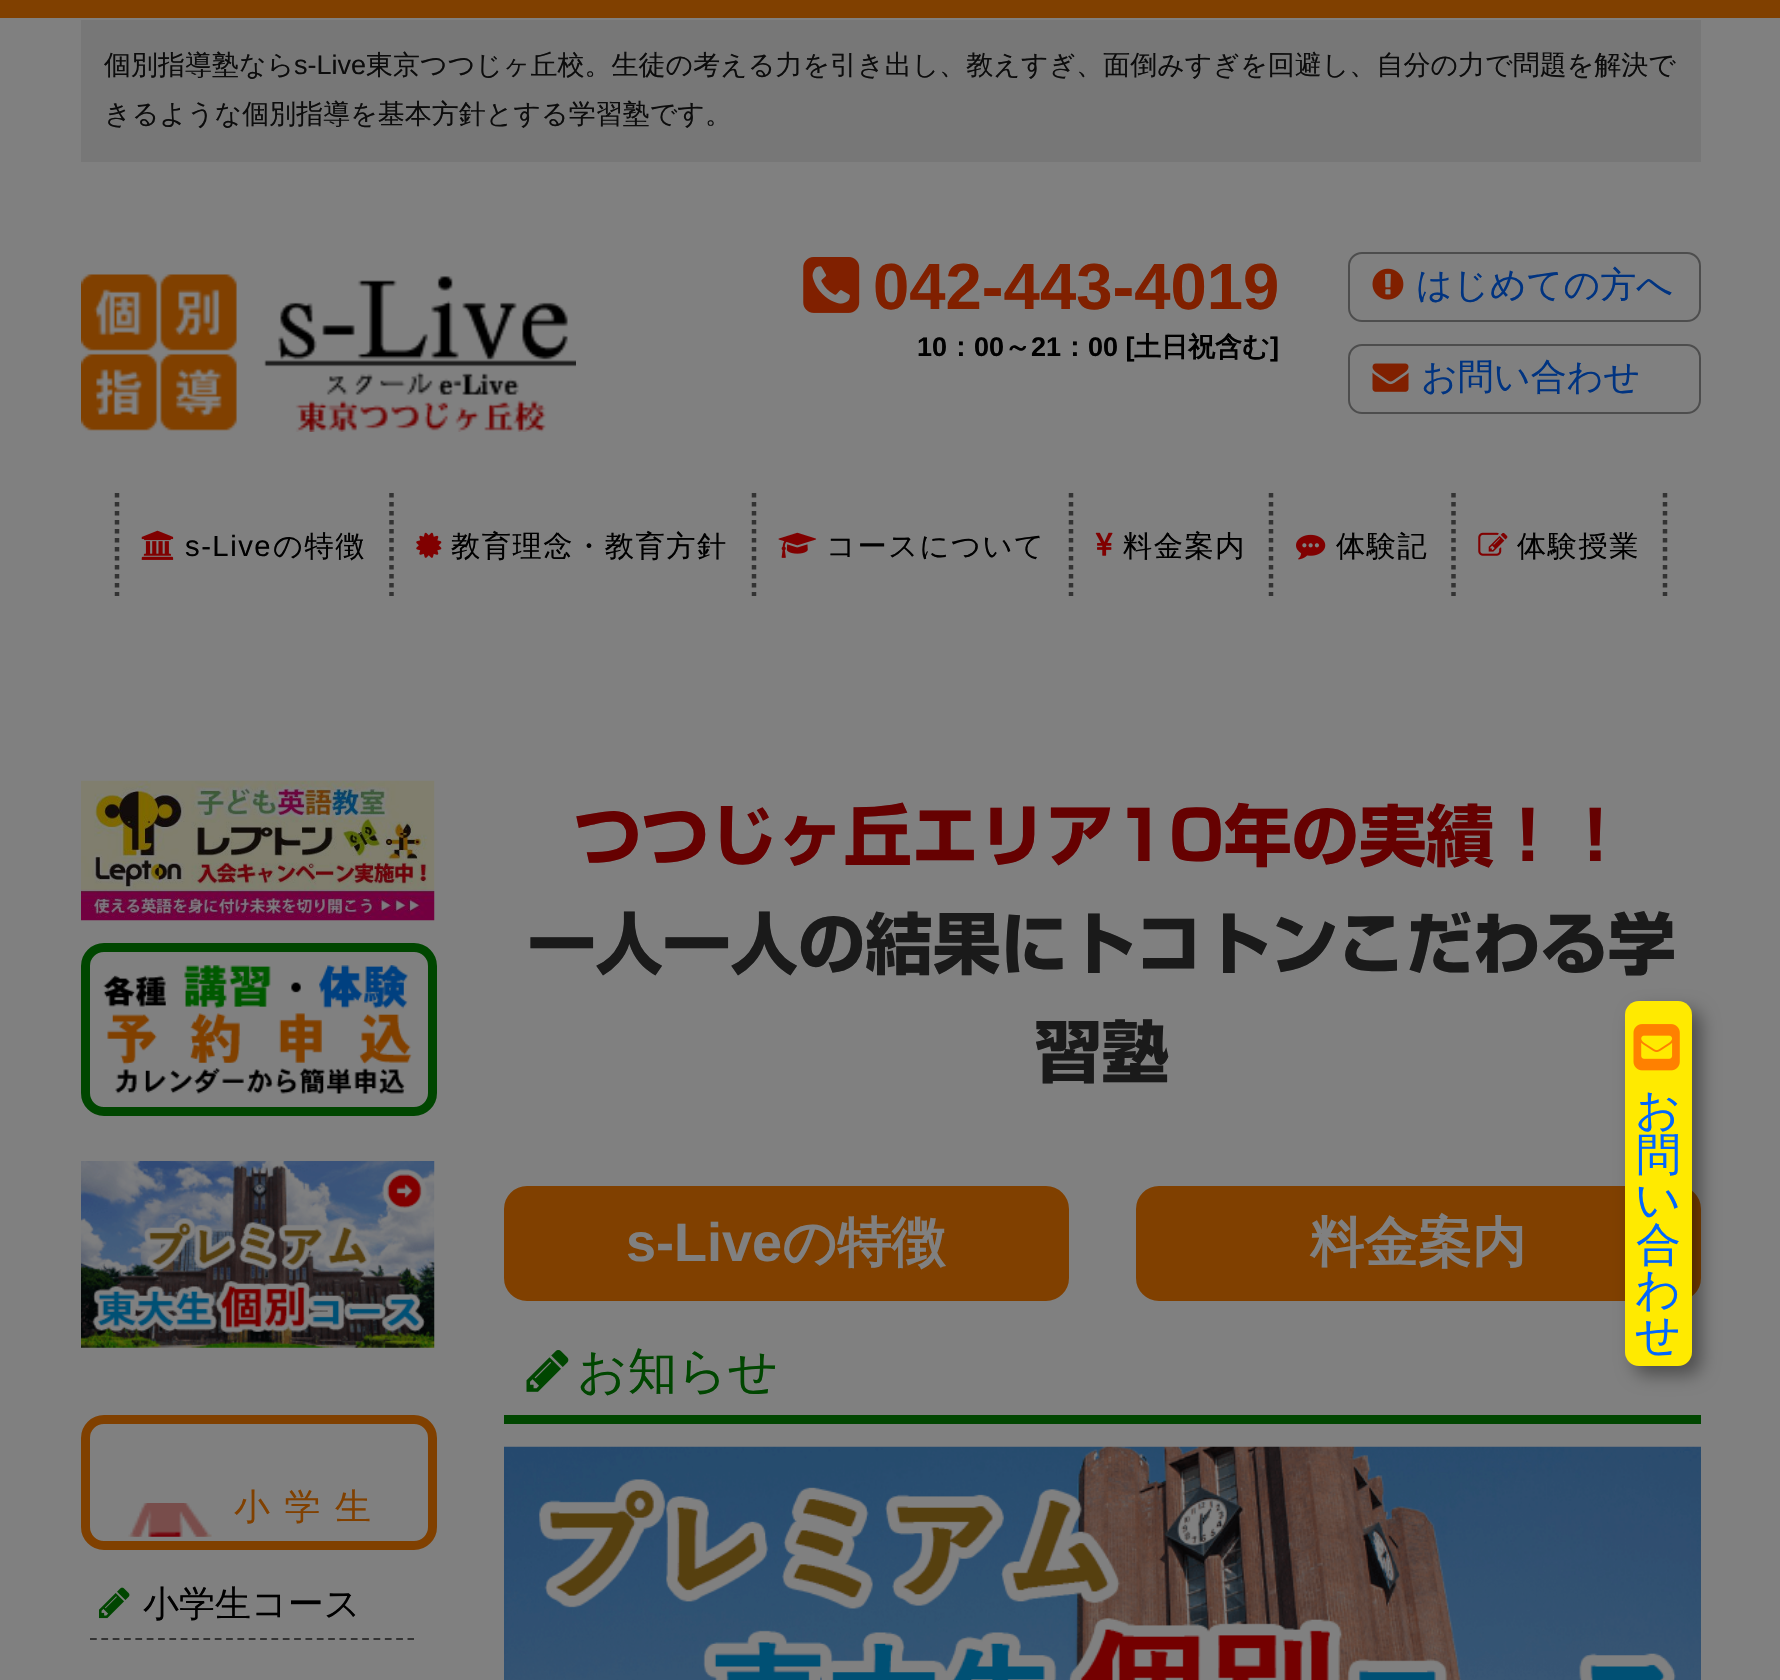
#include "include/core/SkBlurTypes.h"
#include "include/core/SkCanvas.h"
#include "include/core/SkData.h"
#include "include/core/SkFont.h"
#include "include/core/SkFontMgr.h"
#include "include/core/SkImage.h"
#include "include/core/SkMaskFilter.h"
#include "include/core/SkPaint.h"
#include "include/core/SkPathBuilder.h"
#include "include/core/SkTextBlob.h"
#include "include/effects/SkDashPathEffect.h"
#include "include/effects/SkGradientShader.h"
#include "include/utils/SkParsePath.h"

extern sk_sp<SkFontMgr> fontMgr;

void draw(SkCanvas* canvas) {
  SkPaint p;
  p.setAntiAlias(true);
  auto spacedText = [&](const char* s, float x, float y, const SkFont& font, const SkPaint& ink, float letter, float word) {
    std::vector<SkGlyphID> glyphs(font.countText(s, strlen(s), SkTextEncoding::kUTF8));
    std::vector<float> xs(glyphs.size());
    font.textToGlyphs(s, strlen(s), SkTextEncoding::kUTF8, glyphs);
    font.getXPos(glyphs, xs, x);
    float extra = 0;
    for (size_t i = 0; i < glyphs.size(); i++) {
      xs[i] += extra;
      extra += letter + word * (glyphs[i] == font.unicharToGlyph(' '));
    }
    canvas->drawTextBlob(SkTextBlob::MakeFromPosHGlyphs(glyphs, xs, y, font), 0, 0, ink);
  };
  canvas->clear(SkColorSetRGB(128, 128, 128));
  p.setColor(SkColorSetRGB(128, 64, 0));
  canvas->drawRect(SkRect::MakeLTRB(0, 0, 1780, 18), p);
  p.setColor(SkColorSetRGB(119, 119, 119));
  canvas->drawRect(SkRect::MakeLTRB(81, 20, 1701, 162), p);
  canvas->drawImageRect(SkImages::DeferredFromEncodedData(SkData::MakeFromFileName("images/1.png")), SkRect::MakeLTRB(81, 274, 576, 432), SkSamplingOptions());
  canvas->drawImageRect(SkImages::DeferredFromEncodedData(SkData::MakeFromFileName("images/2.png")), SkRect::MakeLTRB(803, 257, 860, 313), SkSamplingOptions());
  p.setStyle(SkPaint::kStroke_Style);
  p.setStrokeWidth(2);
  p.setColor(SkColorSetRGB(77, 77, 77));
  canvas->drawRoundRect(SkRect::MakeLTRB(1349, 253, 1700, 321), 13, 13, p);
  canvas->drawImageRect(SkImages::DeferredFromEncodedData(SkData::MakeFromFileName("images/3.png")), SkRect::MakeLTRB(1372, 268, 1404, 300), SkSamplingOptions());
  canvas->drawRoundRect(SkRect::MakeLTRB(1349, 345, 1700, 413), 13, 13, p);
  canvas->drawImageRect(SkImages::DeferredFromEncodedData(SkData::MakeFromFileName("images/4.png")), SkRect::MakeLTRB(1372, 363, 1409, 392), SkSamplingOptions());
  p.setStrokeWidth(4.5f);
  p.setColor(SkColorSetRGB(51, 51, 51));
  p.setPathEffect(SkDashPathEffect::Make({{4.5f, 4.5f}}, 0));
  canvas->drawPath(SkPathBuilder().moveTo(117, 493).lineTo(117, 596).detach(), p);
  p.setPathEffect(nullptr);
  p.setPathEffect(SkDashPathEffect::Make({{4.5f, 4.5f}}, 0));
  canvas->drawPath(SkPathBuilder().moveTo(391.5f, 493).lineTo(391.5f, 596).detach(), p);
  p.setPathEffect(nullptr);
  canvas->drawImageRect(SkImages::DeferredFromEncodedData(SkData::MakeFromFileName("images/5.png")), SkRect::MakeLTRB(141, 530, 174, 560), SkSamplingOptions());
  p.setPathEffect(SkDashPathEffect::Make({{4.5f, 4.5f}}, 0));
  canvas->drawPath(SkPathBuilder().moveTo(754, 493).lineTo(754, 596).detach(), p);
  p.setPathEffect(nullptr);
  canvas->drawImageRect(SkImages::DeferredFromEncodedData(SkData::MakeFromFileName("images/6.png")), SkRect::MakeLTRB(416, 532, 442, 558), SkSamplingOptions());
  p.setPathEffect(SkDashPathEffect::Make({{4.5f, 4.5f}}, 0));
  canvas->drawPath(SkPathBuilder().moveTo(1071, 493).lineTo(1071, 596).detach(), p);
  p.setPathEffect(nullptr);
  canvas->drawImageRect(SkImages::DeferredFromEncodedData(SkData::MakeFromFileName("images/7.png")), SkRect::MakeLTRB(778, 532, 817, 558), SkSamplingOptions());
  p.setPathEffect(SkDashPathEffect::Make({{4.5f, 4.5f}}, 0));
  canvas->drawPath(SkPathBuilder().moveTo(1271, 493).lineTo(1271, 596).detach(), p);
  p.setPathEffect(nullptr);
  canvas->drawImageRect(SkImages::DeferredFromEncodedData(SkData::MakeFromFileName("images/8.png")), SkRect::MakeLTRB(1095, 532, 1113, 556), SkSamplingOptions());
  p.setPathEffect(SkDashPathEffect::Make({{4.5f, 4.5f}}, 0));
  canvas->drawPath(SkPathBuilder().moveTo(1453.5f, 493).lineTo(1453.5f, 596).detach(), p);
  p.setPathEffect(nullptr);
  canvas->drawImageRect(SkImages::DeferredFromEncodedData(SkData::MakeFromFileName("images/9.png")), SkRect::MakeLTRB(1296, 534, 1326, 560), SkSamplingOptions());
  p.setPathEffect(SkDashPathEffect::Make({{4.5f, 4.5f}}, 0));
  canvas->drawPath(SkPathBuilder().moveTo(1665, 493).lineTo(1665, 596).detach(), p);
  p.setPathEffect(nullptr);
  canvas->drawImageRect(SkImages::DeferredFromEncodedData(SkData::MakeFromFileName("images/10.png")), SkRect::MakeLTRB(1478, 532, 1508, 556), SkSamplingOptions());
  p.setStyle(SkPaint::kFill_Style);
  p.setColor(SkColorSetRGB(128, 64, 0));
  canvas->drawRoundRect(SkRect::MakeLTRB(508.5f, 1190.5f, 1064.5f, 1296.5f), 18.5f, 18.5f, p);
  p.setStyle(SkPaint::kStroke_Style);
  p.setStrokeWidth(9);
  canvas->drawRoundRect(SkRect::MakeLTRB(508.5f, 1190.5f, 1064.5f, 1296.5f), 18.5f, 18.5f, p);
  p.setStyle(SkPaint::kFill_Style);
  canvas->drawRoundRect(SkRect::MakeLTRB(1140.5f, 1190.5f, 1696.5f, 1296.5f), 18.5f, 18.5f, p);
  p.setStyle(SkPaint::kStroke_Style);
  canvas->drawRoundRect(SkRect::MakeLTRB(1140.5f, 1190.5f, 1696.5f, 1296.5f), 18.5f, 18.5f, p);
  p.setStyle(SkPaint::kFill_Style);
  p.setColor(SkColorSetRGB(0, 70, 0));
  canvas->drawRect(SkRect::MakeLTRB(504, 1415, 1701, 1424), p);
  canvas->drawImageRect(SkImages::DeferredFromEncodedData(SkData::MakeFromFileName("images/11.png")), SkRect::MakeLTRB(526, 1350, 569, 1392), SkSamplingOptions());
  canvas->drawImageRect(SkImages::DeferredFromEncodedData(SkData::MakeFromFileName("images/12.png")), SkRect::MakeLTRB(504, 1446, 1701, 1680), SkSamplingOptions());
  canvas->drawImageRect(SkImages::DeferredFromEncodedData(SkData::MakeFromFileName("images/13.png")), SkRect::MakeLTRB(81, 780, 435, 921), SkSamplingOptions());
  p.setStyle(SkPaint::kStroke_Style);
  canvas->drawRoundRect(SkRect::MakeLTRB(85.5f, 947.5f, 432.5f, 1111.5f), 18.5f, 18.5f, p);
  canvas->drawImageRect(SkImages::DeferredFromEncodedData(SkData::MakeFromFileName("images/14.png")), SkRect::MakeLTRB(103, 965, 412, 1094), SkSamplingOptions());
  canvas->drawImageRect(SkImages::DeferredFromEncodedData(SkData::MakeFromFileName("images/15.png")), SkRect::MakeLTRB(81, 1161, 435, 1348), SkSamplingOptions());
  p.setColor(SkColorSetRGB(128, 64, 0));
  canvas->drawRoundRect(SkRect::MakeLTRB(85.5f, 1419.5f, 432.5f, 1545.5f), 18.5f, 18.5f, p);
  canvas->drawImageRect(SkImages::DeferredFromEncodedData(SkData::MakeFromFileName("images/16.png")), SkRect::MakeLTRB(128, 1503, 212, 1537), SkSamplingOptions());
  p.setStrokeWidth(2.2f);
  p.setColor(SkColorSetRGB(51, 51, 51));
  p.setPathEffect(SkDashPathEffect::Make({{6.75f, 4.59f}}, 0));
  canvas->drawPath(SkPathBuilder().moveTo(90, 1639).lineTo(414, 1639).detach(), p);
  p.setPathEffect(nullptr);
  canvas->drawImageRect(SkImages::DeferredFromEncodedData(SkData::MakeFromFileName("images/17.png")), SkRect::MakeLTRB(99, 1587, 130, 1619), SkSamplingOptions());
  p.setStyle(SkPaint::kFill_Style);
  p.setColor(SkColorSetARGB(102, 0, 0, 0));
  p.setMaskFilter(SkMaskFilter::MakeBlur(kNormal_SkBlurStyle, 9));
  canvas->drawRoundRect(SkRect::MakeLTRB(1634, 1010, 1701, 1375), 14, 14, p);
  p.setMaskFilter(nullptr);
  p.setColor(SkColorSetRGB(255, 234, 0));
  canvas->drawRoundRect(SkRect::MakeLTRB(1625, 1001, 1692, 1366), 14, 14, p);
  canvas->drawImageRect(SkImages::DeferredFromEncodedData(SkData::MakeFromFileName("images/18.png")), SkRect::MakeLTRB(1633, 1024, 1680, 1071), SkSamplingOptions());
  SkFont font1(fontMgr->matchFamilyStyle("WenQuanYi Zen Hei", SkFontStyle(500, SkFontStyle::kNormal_Width, SkFontStyle::kUpright_Slant)), 27);
  font1.setSubpixel(true);
  p.setColor(SkColorSetRGB(12, 12, 12));
  canvas->drawString("個別指導塾なら", 104, 74, font1, p);
  SkFont font2(fontMgr->matchFamilyStyle("Liberation Sans", SkFontStyle::Normal()), 27);
  font2.setSubpixel(true);
  canvas->drawString("s-Live", 294, 74, font2, p);
  canvas->drawString("東京つつじヶ丘校。生徒の考える力を引き出し、教えすぎ、面倒みすぎを回避し、自分の力で問題を解決で", 366, 74, font1, p);
  canvas->drawString("きるような個別指導を基本方針とする学習塾です。", 104, 123, font1, p);
  SkFont font3(fontMgr->matchFamilyStyle("Liberation Sans", SkFontStyle::Bold()), 65.25f);
  font3.setSubpixel(true);
  p.setColor(SkColorSetRGB(128, 32, 0));
  canvas->drawString("042-443-4019", 873, 309, font3, p);
  SkFont font4(fontMgr->matchFamilyStyle("Liberation Sans", SkFontStyle::Bold()), 27);
  font4.setSubpixel(true);
  p.setColor(SK_ColorBLACK);
  canvas->drawString("10", 917, 356, font4, p);
  SkFont font5(fontMgr->matchFamilyStyle("WenQuanYi Zen Hei", SkFontStyle::Bold()), 27);
  font5.setSubpixel(true);
  canvas->drawString("：", 947, 356, font5, p);
  canvas->drawString("00", 974, 356, font4, p);
  canvas->drawString("～", 1004, 356, font5, p);
  canvas->drawString("21", 1031, 356, font4, p);
  canvas->drawString("：", 1061, 356, font5, p);
  canvas->drawString("00 [", 1088, 356, font4, p);
  canvas->drawString("土日祝含む", 1134, 356, font5, p);
  canvas->drawString("]", 1270, 356, font4, p);
  SkFont font6(fontMgr->matchFamilyStyle("WenQuanYi Zen Hei", SkFontStyle(500, SkFontStyle::kNormal_Width, SkFontStyle::kUpright_Slant)), 36);
  font6.setSubpixel(true);
  p.setColor(SkColorSetRGB(0, 51, 128));
  canvas->drawString("はじめての方へ", 1416, 297, font6, p);
  canvas->drawString("お問い合わせ", 1421, 389, font6, p);
  SkFont font7(fontMgr->matchFamilyStyle("Liberation Sans", SkFontStyle::Normal()), 29.25f);
  font7.setSubpixel(true);
  p.setColor(SK_ColorBLACK);
  spacedText("s-Live", 185, 556, font7, p, 1.5f, 0);
  SkFont font8(fontMgr->matchFamilyStyle("WenQuanYi Zen Hei", SkFontStyle(500, SkFontStyle::kNormal_Width, SkFontStyle::kUpright_Slant)), 29.25f);
  font8.setSubpixel(true);
  spacedText("の特徴", 273, 556, font8, p, 1.5f, 0);
  spacedText("教育理念・教育方針", 451, 556, font8, p, 1.5f, 0);
  spacedText("コースについて", 826, 556, font8, p, 1.5f, 0);
  spacedText("料金案内", 1123, 556, font8, p, 1.5f, 0);
  spacedText("体験記", 1336, 556, font8, p, 1.5f, 0);
  spacedText("体験授業", 1517, 556, font8, p, 1.5f, 0);
  SkFont font9(fontMgr->matchFamilyStyle("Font", SkFontStyle::Bold()), 67.5f);
  font9.setSubpixel(true);
  p.setColor(SkColorSetRGB(102, 1, 1));
  canvas->drawString("つつじヶ丘エリア10年の実績！！", 574, 861, font9, p);
  p.setColor(SkColorSetRGB(26, 26, 26));
  canvas->drawString("一人一人の結果にトコトンこだわる学", 528, 969, font9, p);
  canvas->drawString("習塾", 1034, 1077, font9, p);
  SkFont font10(fontMgr->matchFamilyStyle("Liberation Sans", SkFontStyle::Bold()), 54);
  font10.setSubpixel(true);
  p.setColor(SkColorSetRGB(128, 128, 128));
  canvas->drawString("s-Live", 626, 1261, font10, p);
  SkFont font11(fontMgr->matchFamilyStyle("WenQuanYi Zen Hei", SkFontStyle::Bold()), 54);
  font11.setSubpixel(true);
  canvas->drawString("の特徴", 782, 1261, font11, p);
  canvas->drawString("料金案内", 1310, 1261, font11, p);
  SkFont font12(fontMgr->matchFamilyStyle("WenQuanYi Zen Hei", SkFontStyle(500, SkFontStyle::kNormal_Width, SkFontStyle::kUpright_Slant)), 49.5f);
  font12.setSubpixel(true);
  p.setColor(SkColorSetRGB(0, 70, 0));
  canvas->drawString("お知らせ", 577, 1388, font12, p);
  p.setColor(SkColorSetRGB(128, 64, 0));
  spacedText("小学生", 234, 1519, font6, p, 14.5f, 0);
  p.setColor(SK_ColorBLACK);
  canvas->drawString("小学生コース", 143, 1616, font6, p);
  SkFont font13(fontMgr->matchFamilyStyle("WenQuanYi Zen Hei", SkFontStyle(500, SkFontStyle::kNormal_Width, SkFontStyle::kUpright_Slant)), 45);
  font13.setSubpixel(true);
  p.setColor(SkColorSetRGB(0, 102, 255));
  canvas->drawString("お", 1635, 1125, font13, p);
  canvas->drawString("問", 1636, 1170, font13, p);
  canvas->drawString("い", 1635, 1215, font13, p);
  canvas->drawString("合", 1636, 1260, font13, p);
  canvas->drawString("わ", 1635, 1305, font13, p);
  canvas->drawString("せ", 1635, 1350, font13, p);
}
